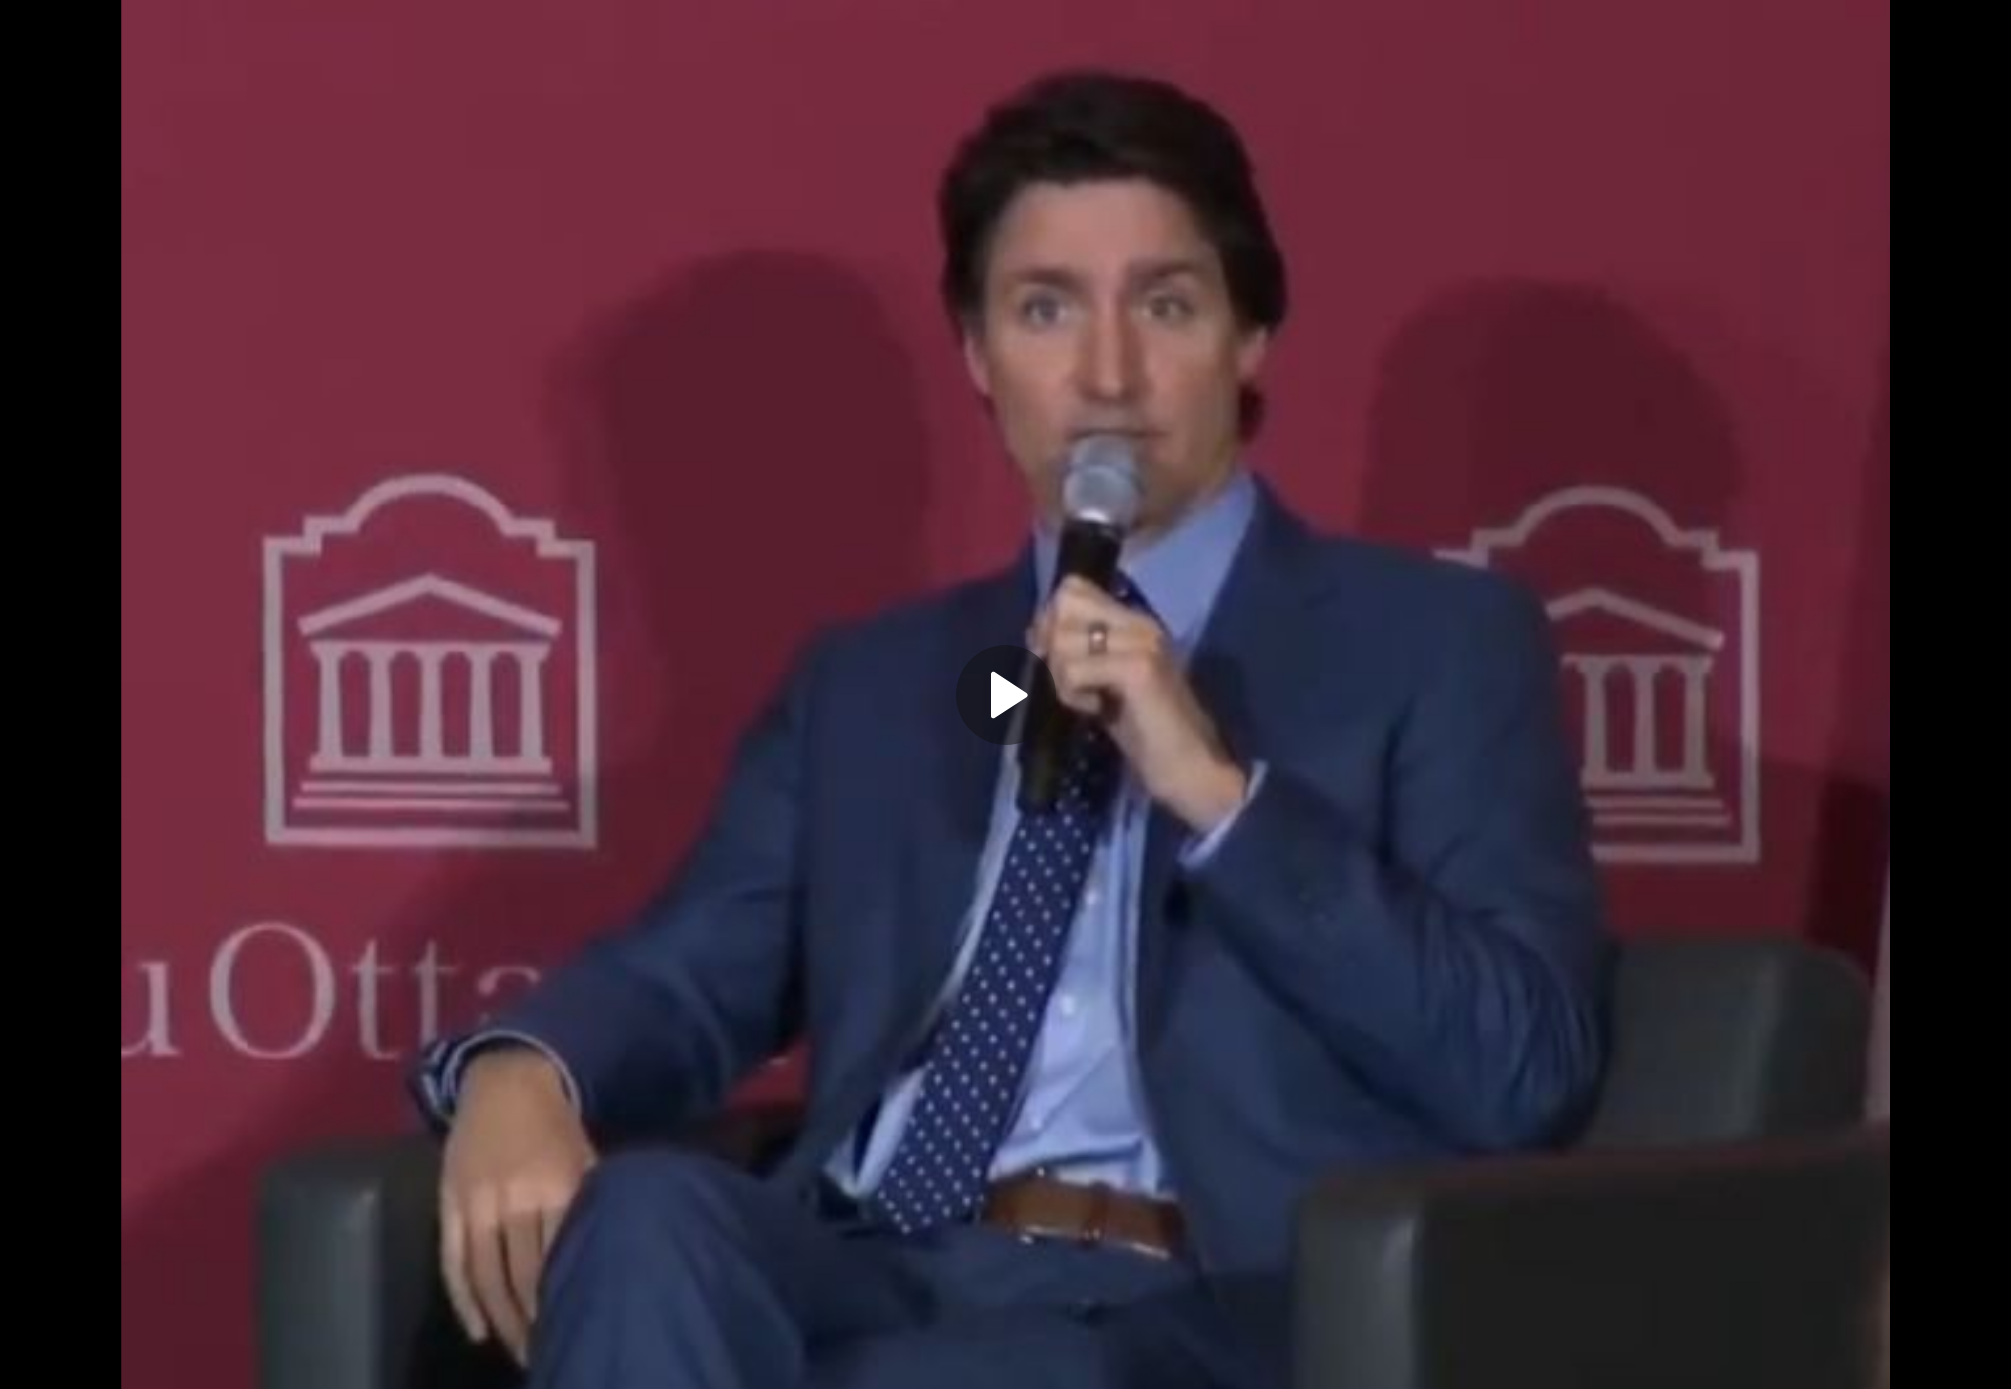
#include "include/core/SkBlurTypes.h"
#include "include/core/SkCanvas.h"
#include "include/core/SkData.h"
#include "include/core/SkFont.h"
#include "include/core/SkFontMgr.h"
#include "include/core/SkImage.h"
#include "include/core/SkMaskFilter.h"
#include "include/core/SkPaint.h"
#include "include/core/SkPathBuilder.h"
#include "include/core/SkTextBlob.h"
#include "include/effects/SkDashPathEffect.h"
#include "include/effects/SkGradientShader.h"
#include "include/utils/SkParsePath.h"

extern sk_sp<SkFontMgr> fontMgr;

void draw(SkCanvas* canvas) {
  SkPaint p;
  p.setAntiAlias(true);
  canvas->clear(SK_ColorBLACK);
  canvas->drawImageRect(SkImages::DeferredFromEncodedData(SkData::MakeFromFileName("images/1.png")), SkRect::MakeLTRB(121, 0, 1890, 1389), SkSamplingOptions());
  p.setColor(SkColorSetARGB(122, 13, 13, 13));
  canvas->drawCircle(1006, 695, 50, p);
  canvas->drawImageRect(SkImages::DeferredFromEncodedData(SkData::MakeFromFileName("images/2.png")), SkRect::MakeLTRB(991, 671, 1028, 719), SkSamplingOptions());
}
